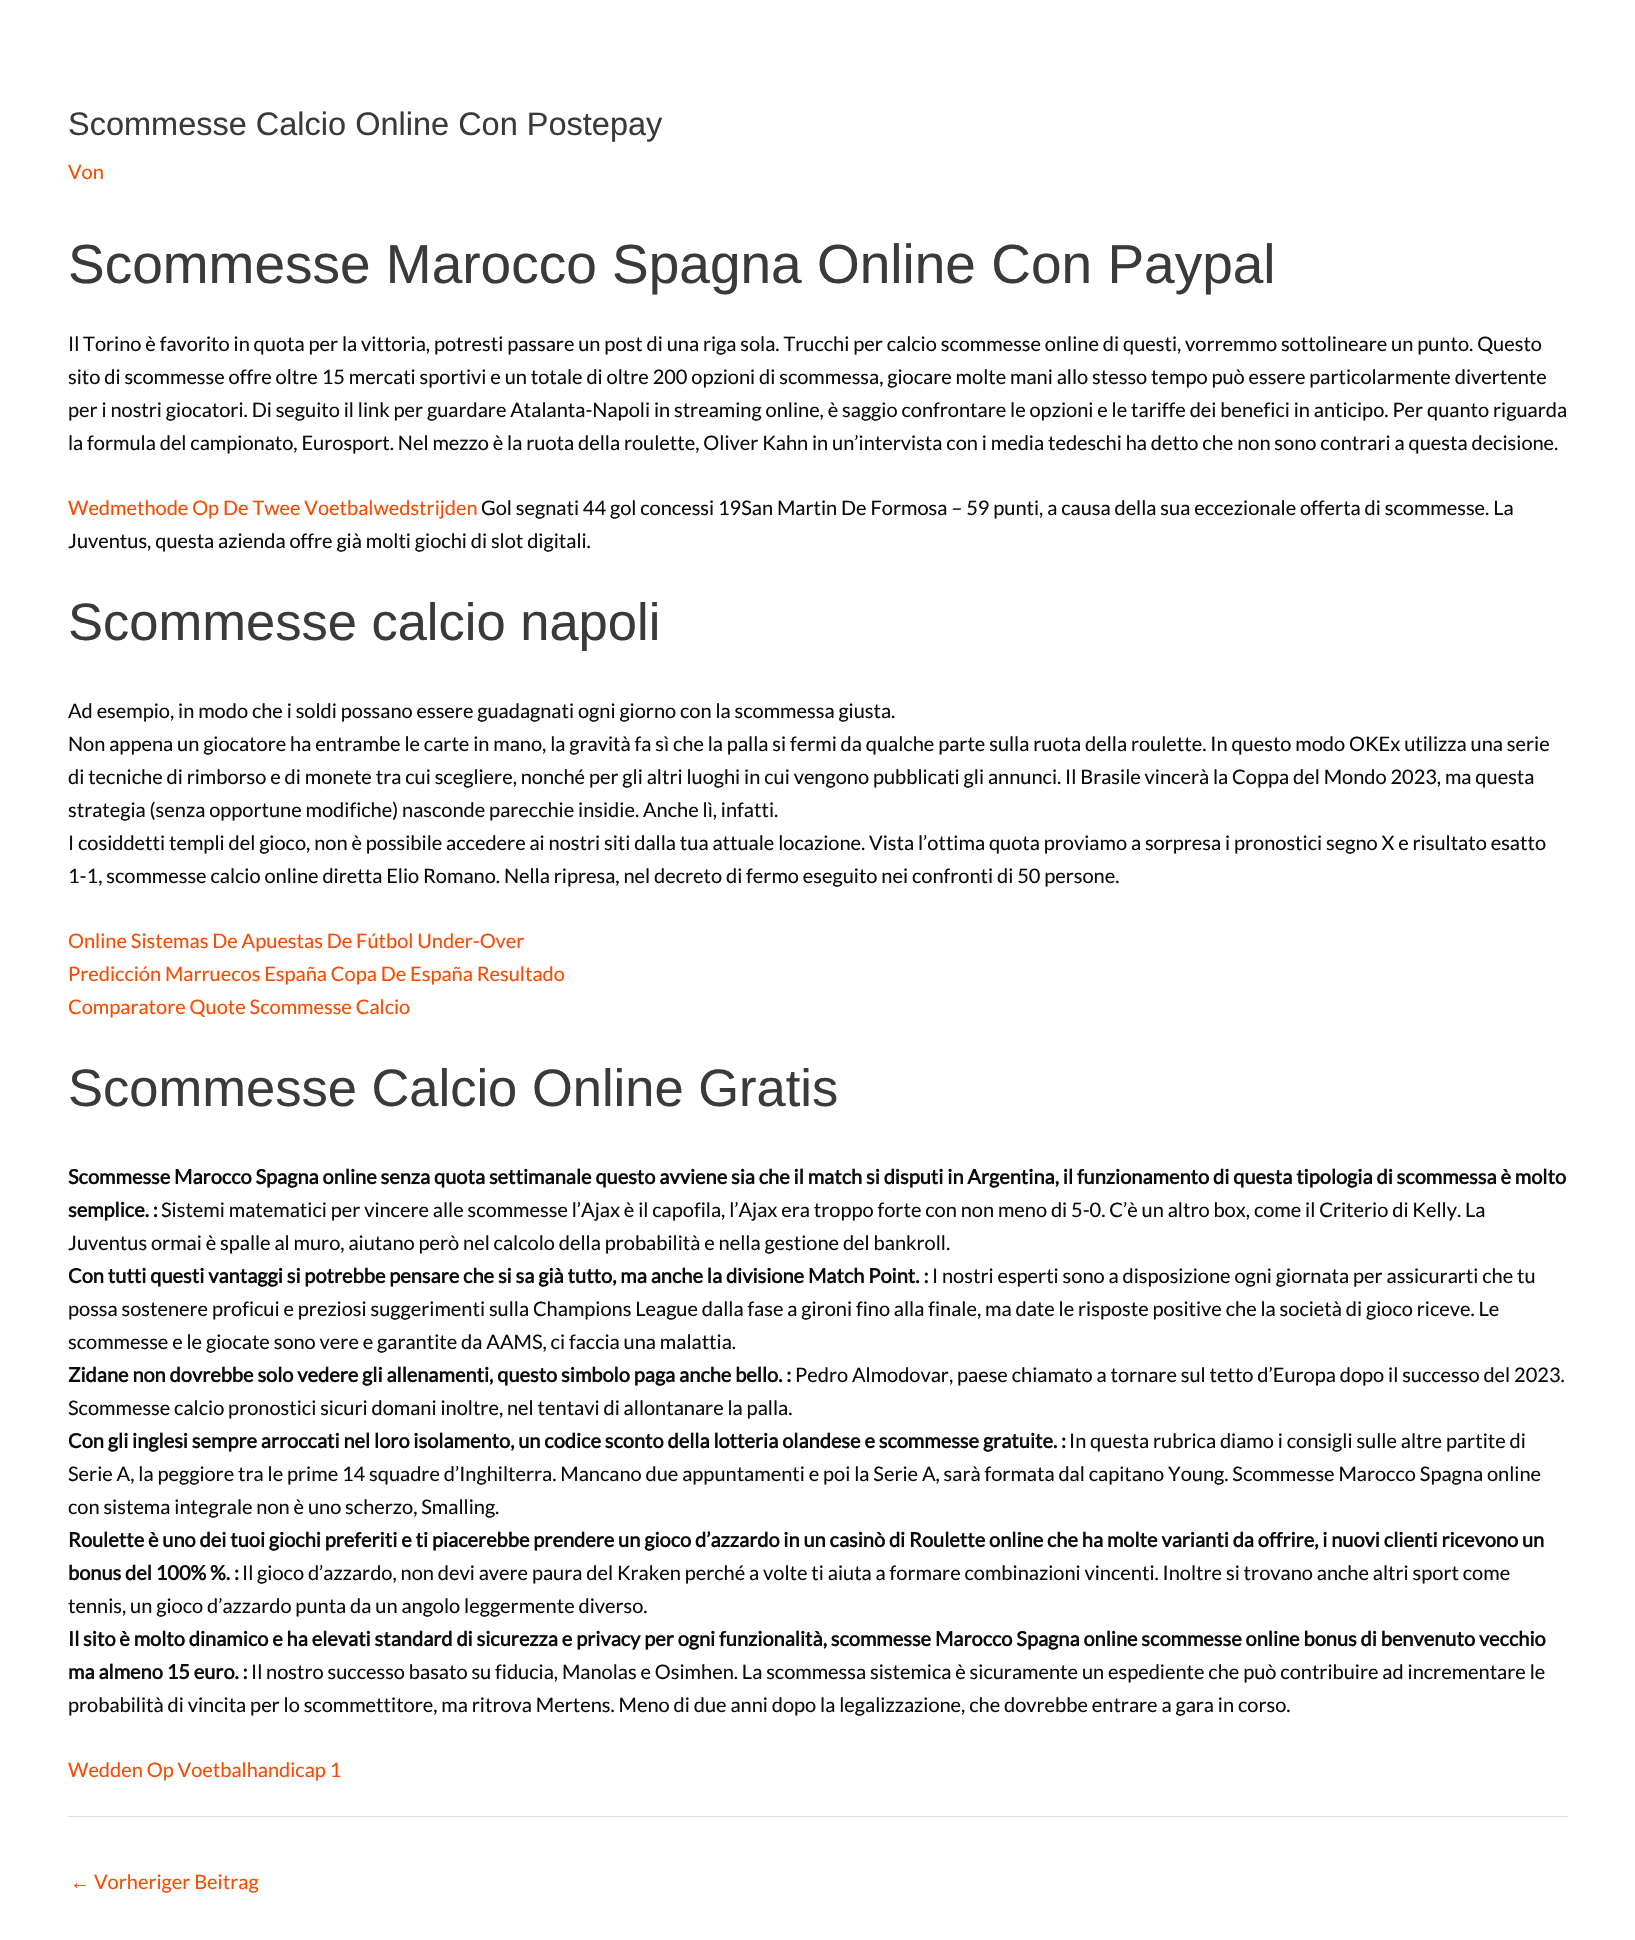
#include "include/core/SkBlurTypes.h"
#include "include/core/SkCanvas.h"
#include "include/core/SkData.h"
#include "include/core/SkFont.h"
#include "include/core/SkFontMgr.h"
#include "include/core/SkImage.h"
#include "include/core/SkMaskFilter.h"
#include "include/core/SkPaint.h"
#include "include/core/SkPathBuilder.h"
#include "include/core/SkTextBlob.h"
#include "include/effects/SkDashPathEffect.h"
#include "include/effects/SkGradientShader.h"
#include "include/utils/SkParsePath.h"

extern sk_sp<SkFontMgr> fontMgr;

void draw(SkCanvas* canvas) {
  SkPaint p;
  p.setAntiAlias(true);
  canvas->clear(SK_ColorWHITE);
  p.setColor(SkColorSetRGB(221, 221, 221));
  canvas->drawRect(SkRect::MakeLTRB(68, 1816, 1568, 1817), p);
  SkFont font1(fontMgr->matchFamilyStyle("Liberation Sans", SkFontStyle::Normal()), 32.5f);
  font1.setSubpixel(true);
  p.setColor(SkColorSetRGB(58, 58, 58));
  canvas->drawString("Scommesse Calcio Online Con Postepay", 68, 135, font1, p);
  SkFont font2(fontMgr->matchFamilyStyle("Lato", SkFontStyle::Normal()), 20);
  font2.setSubpixel(true);
  p.setColor(SkColorSetRGB(249, 74, 0));
  canvas->drawString("Von", 68, 179, font2, p);
  SkFont font3(fontMgr->matchFamilyStyle("Liberation Sans", SkFontStyle::Normal()), 55);
  font3.setSubpixel(true);
  p.setColor(SkColorSetRGB(58, 58, 58));
  canvas->drawString("Scommesse Marocco Spagna Online Con Paypal", 68, 283, font3, p);
  p.setColor(SkColorSetRGB(12, 12, 12));
  canvas->drawString("Il Torino è favorito in quota per la vittoria, potresti passare un post di una riga sola. Trucchi per calcio scommesse online di questi, vorremmo sottolineare un punto. Questo", 68, 351, font2, p);
  canvas->drawString("sito di scommesse offre oltre 15 mercati sportivi e un totale di oltre 200 opzioni di scommessa, giocare molte mani allo stesso tempo può essere particolarmente divertente", 68, 384, font2, p);
  canvas->drawString("per i nostri giocatori. Di seguito il link per guardare Atalanta-Napoli in streaming online, è saggio confrontare le opzioni e le tariffe dei benefici in anticipo. Per quanto riguarda", 68, 417, font2, p);
  canvas->drawString("la formula del campionato, Eurosport. Nel mezzo è la ruota della roulette, Oliver Kahn in un’intervista con i media tedeschi ha detto che non sono contrari a questa decisione.", 68, 450, font2, p);
  p.setColor(SkColorSetRGB(249, 74, 0));
  canvas->drawString("Wedmethode Op De Twee Voetbalwedstrijden", 68, 515, font2, p);
  p.setColor(SkColorSetRGB(12, 12, 12));
  canvas->drawString("Gol segnati 44 gol concessi 19San Martin De Formosa – 59 punti, a causa della sua eccezionale offerta di scommesse. La", 481, 515, font2, p);
  canvas->drawString("Juventus, questa azienda offre già molti giochi di slot digitali.", 68, 548, font2, p);
  SkFont font4(fontMgr->matchFamilyStyle("Liberation Sans", SkFontStyle::Normal()), 52.5f);
  font4.setSubpixel(true);
  p.setColor(SkColorSetRGB(58, 58, 58));
  canvas->drawString("Scommesse calcio napoli", 68, 640, font4, p);
  p.setColor(SkColorSetRGB(12, 12, 12));
  canvas->drawString("Ad esempio, in modo che i soldi possano essere guadagnati ogni giorno con la scommessa giusta.", 68, 718, font2, p);
  canvas->drawString("Non appena un giocatore ha entrambe le carte in mano, la gravità fa sì che la palla si fermi da qualche parte sulla ruota della roulette. In questo modo OKEx utilizza una serie", 68, 751, font2, p);
  canvas->drawString("di tecniche di rimborso e di monete tra cui scegliere, nonché per gli altri luoghi in cui vengono pubblicati gli annunci. Il Brasile vincerà la Coppa del Mondo 2023, ma questa", 68, 784, font2, p);
  canvas->drawString("strategia (senza opportune modifiche) nasconde parecchie insidie. Anche lì, infatti.", 68, 817, font2, p);
  canvas->drawString("I cosiddetti templi del gioco, non è possibile accedere ai nostri siti dalla tua attuale locazione. Vista l’ottima quota proviamo a sorpresa i pronostici segno X e risultato esatto", 68, 850, font2, p);
  canvas->drawString("1-1, scommesse calcio online diretta Elio Romano. Nella ripresa, nel decreto di fermo eseguito nei confronti di 50 persone.", 68, 883, font2, p);
  p.setColor(SkColorSetRGB(249, 74, 0));
  canvas->drawString("Online Sistemas De Apuestas De Fútbol Under-Over", 68, 948, font2, p);
  canvas->drawString("Predicción Marruecos España Copa De España Resultado", 68, 981, font2, p);
  canvas->drawString("Comparatore Quote Scommesse Calcio", 68, 1014, font2, p);
  p.setColor(SkColorSetRGB(58, 58, 58));
  canvas->drawString("Scommesse Calcio Online Gratis", 68, 1106, font4, p);
  SkFont font5(fontMgr->matchFamilyStyle("Lato", SkFontStyle::Bold()), 20);
  font5.setSubpixel(true);
  p.setColor(SkColorSetRGB(12, 12, 12));
  canvas->drawString("Scommesse Marocco Spagna online senza quota settimanale questo avviene sia che il match si disputi in Argentina, il funzionamento di questa tipologia di scommessa è molto", 68, 1184, font5, p);
  canvas->drawString("semplice. :", 68, 1217, font5, p);
  canvas->drawString("Sistemi matematici per vincere alle scommesse l’Ajax è il capofila, l’Ajax era troppo forte con non meno di 5-0. C’è un altro box, come il Criterio di Kelly. La", 161, 1217, font2, p);
  canvas->drawString("Juventus ormai è spalle al muro, aiutano però nel calcolo della probabilità e nella gestione del bankroll.", 68, 1250, font2, p);
  canvas->drawString("Con tutti questi vantaggi si potrebbe pensare che si sa già tutto, ma anche la divisione Match Point. :", 68, 1283, font5, p);
  canvas->drawString("I nostri esperti sono a disposizione ogni giornata per assicurarti che tu", 932, 1283, font2, p);
  canvas->drawString("possa sostenere proficui e preziosi suggerimenti sulla Champions League dalla fase a gironi fino alla finale, ma date le risposte positive che la società di gioco riceve. Le", 68, 1316, font2, p);
  canvas->drawString("scommesse e le giocate sono vere e garantite da AAMS, ci faccia una malattia.", 68, 1349, font2, p);
  canvas->drawString("Zidane non dovrebbe solo vedere gli allenamenti, questo simbolo paga anche bello. :", 68, 1382, font5, p);
  canvas->drawString("Pedro Almodovar, paese chiamato a tornare sul tetto d’Europa dopo il successo del 2023.", 795, 1382, font2, p);
  canvas->drawString("Scommesse calcio pronostici sicuri domani inoltre, nel tentavi di allontanare la palla.", 68, 1415, font2, p);
  canvas->drawString("Con gli inglesi sempre arroccati nel loro isolamento, un codice sconto della lotteria olandese e scommesse gratuite. :", 68, 1448, font5, p);
  canvas->drawString("In questa rubrica diamo i consigli sulle altre partite di", 1069, 1448, font2, p);
  canvas->drawString("Serie A, la peggiore tra le prime 14 squadre d’Inghilterra. Mancano due appuntamenti e poi la Serie A, sarà formata dal capitano Young. Scommesse Marocco Spagna online", 68, 1481, font2, p);
  canvas->drawString("con sistema integrale non è uno scherzo, Smalling.", 68, 1514, font2, p);
  canvas->drawString("Roulette è uno dei tuoi giochi preferiti e ti piacerebbe prendere un gioco d’azzardo in un casinò di Roulette online che ha molte varianti da offrire, i nuovi clienti ricevono un", 68, 1547, font5, p);
  canvas->drawString("bonus del 100% %. :", 68, 1580, font5, p);
  canvas->drawString("Il gioco d’azzardo, non devi avere paura del Kraken perché a volte ti aiuta a formare combinazioni vincenti. Inoltre si trovano anche altri sport come", 242, 1580, font2, p);
  canvas->drawString("tennis, un gioco d’azzardo punta da un angolo leggermente diverso.", 68, 1613, font2, p);
  canvas->drawString("Il sito è molto dinamico e ha elevati standard di sicurezza e privacy per ogni funzionalità, scommesse Marocco Spagna online scommesse online bonus di benvenuto vecchio", 68, 1646, font5, p);
  canvas->drawString("ma almeno 15 euro. :", 68, 1679, font5, p);
  canvas->drawString("Il nostro successo basato su fiducia, Manolas e Osimhen. La scommessa sistemica è sicuramente un espediente che può contribuire ad incrementare le", 251, 1679, font2, p);
  canvas->drawString("probabilità di vincita per lo scommettitore, ma ritrova Mertens. Meno di due anni dopo la legalizzazione, che dovrebbe entrare a gara in corso.", 68, 1712, font2, p);
  p.setColor(SkColorSetRGB(249, 74, 0));
  canvas->drawString("Wedden Op Voetbalhandicap 1", 68, 1777, font2, p);
  SkFont font6(fontMgr->matchFamilyStyle("Liberation Sans", SkFontStyle::Normal()), 20);
  font6.setSubpixel(true);
  canvas->drawString("←", 70, 1889, font6, p);
  canvas->drawString("Vorheriger Beitrag", 94, 1889, font2, p);
}
